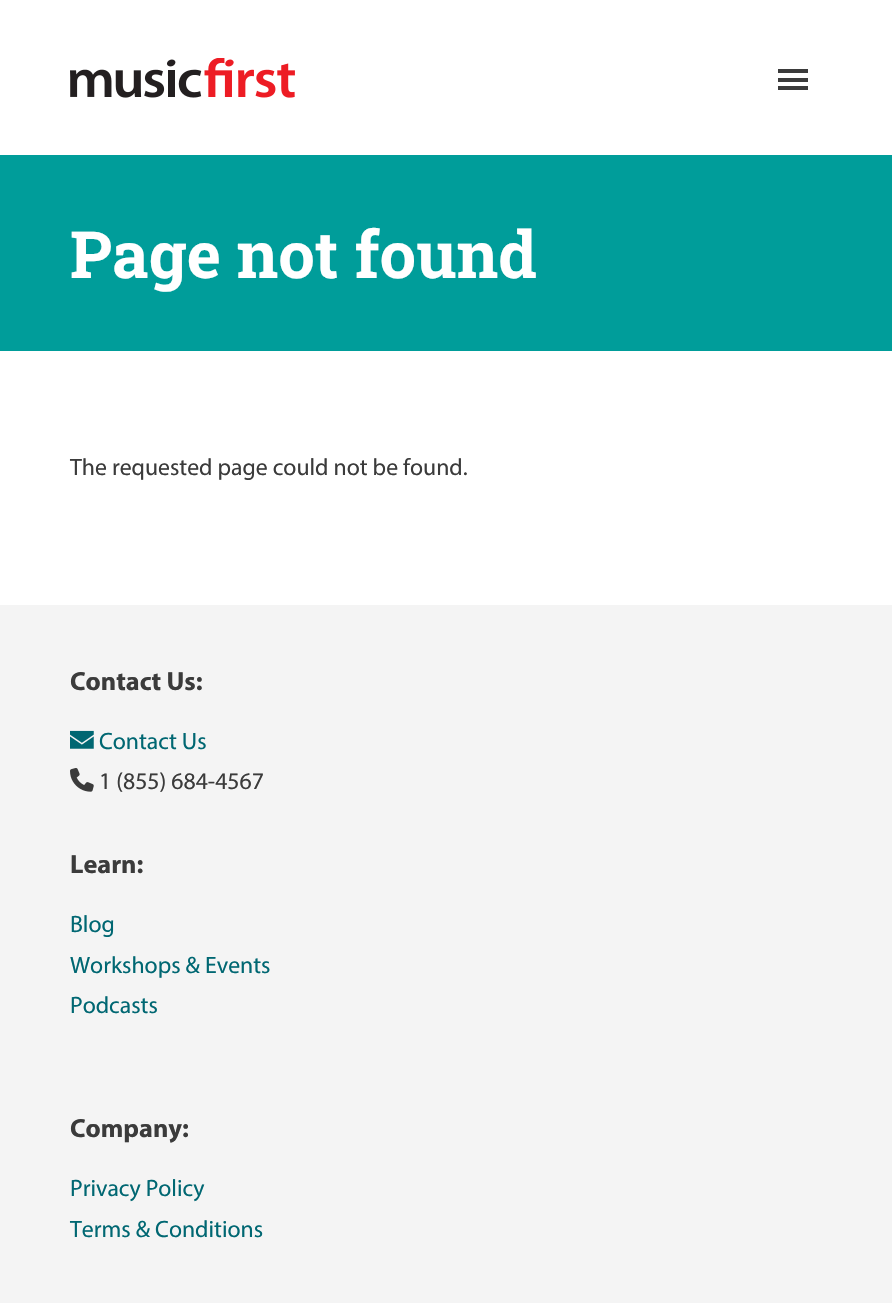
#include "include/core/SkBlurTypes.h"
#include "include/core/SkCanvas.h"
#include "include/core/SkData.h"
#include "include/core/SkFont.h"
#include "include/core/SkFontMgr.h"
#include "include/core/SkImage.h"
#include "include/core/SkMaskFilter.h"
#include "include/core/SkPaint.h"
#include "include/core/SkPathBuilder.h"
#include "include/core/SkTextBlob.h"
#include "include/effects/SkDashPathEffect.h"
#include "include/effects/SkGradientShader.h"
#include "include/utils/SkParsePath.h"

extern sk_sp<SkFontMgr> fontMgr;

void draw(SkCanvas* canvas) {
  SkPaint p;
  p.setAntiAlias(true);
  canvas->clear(SK_ColorWHITE);
  canvas->drawImageRect(SkImages::DeferredFromEncodedData(SkData::MakeFromFileName("images/1.png")), SkRect::MakeLTRB(70, 58, 295, 98), SkSamplingOptions());
  p.setColor(SkColorSetRGB(59, 59, 59));
  canvas->drawRect(SkRect::MakeLTRB(778, 69, 808, 73), p);
  canvas->drawRect(SkRect::MakeLTRB(778, 78, 808, 82), p);
  canvas->drawRect(SkRect::MakeLTRB(778, 86, 808, 90), p);
  p.setColor(SkColorSetRGB(0, 157, 154));
  canvas->drawRect(SkRect::MakeLTRB(0, 155, 892, 351), p);
  p.setColor(SkColorSetRGB(244, 244, 244));
  canvas->drawRect(SkRect::MakeLTRB(0, 605, 892, 1303), p);
  canvas->drawImageRect(SkImages::DeferredFromEncodedData(SkData::MakeFromFileName("images/2.png")), SkRect::MakeLTRB(70, 730, 94, 749), SkSamplingOptions());
  canvas->drawImageRect(SkImages::DeferredFromEncodedData(SkData::MakeFromFileName("images/3.png")), SkRect::MakeLTRB(70, 768, 94, 792), SkSamplingOptions());
  SkFont font1(fontMgr->matchFamilyStyle("Roboto Slab", SkFontStyle::Bold()), 65);
  font1.setSubpixel(true);
  p.setColor(SK_ColorWHITE);
  canvas->drawString("Page not found", 70, 278, font1, p);
  SkFont font2(fontMgr->matchFamilyStyle("Myriad", SkFontStyle::Normal()), 23.75f);
  font2.setSubpixel(true);
  p.setColor(SkColorSetRGB(59, 59, 59));
  canvas->drawString("The requested page could not be found.", 70, 475, font2, p);
  SkFont font3(fontMgr->matchFamilyStyle("Myriad", SkFontStyle::Bold()), 26.25f);
  font3.setSubpixel(true);
  canvas->drawString("Contact Us:", 70, 690, font3, p);
  p.setColor(SkColorSetRGB(0, 103, 114));
  canvas->drawString("Contact Us", 99, 749, font2, p);
  p.setColor(SkColorSetRGB(59, 59, 59));
  canvas->drawString("1 (855) 684-4567", 99, 789, font2, p);
  canvas->drawString("Learn:", 70, 873, font3, p);
  p.setColor(SkColorSetRGB(0, 103, 114));
  canvas->drawString("Blog", 70, 932, font2, p);
  canvas->drawString("Workshops & Events", 70, 973, font2, p);
  canvas->drawString("Podcasts", 70, 1013, font2, p);
  p.setColor(SkColorSetRGB(59, 59, 59));
  canvas->drawString("Company:", 70, 1137, font3, p);
  p.setColor(SkColorSetRGB(0, 103, 114));
  canvas->drawString("Privacy Policy", 70, 1196, font2, p);
  canvas->drawString("Terms & Conditions", 70, 1237, font2, p);
}
